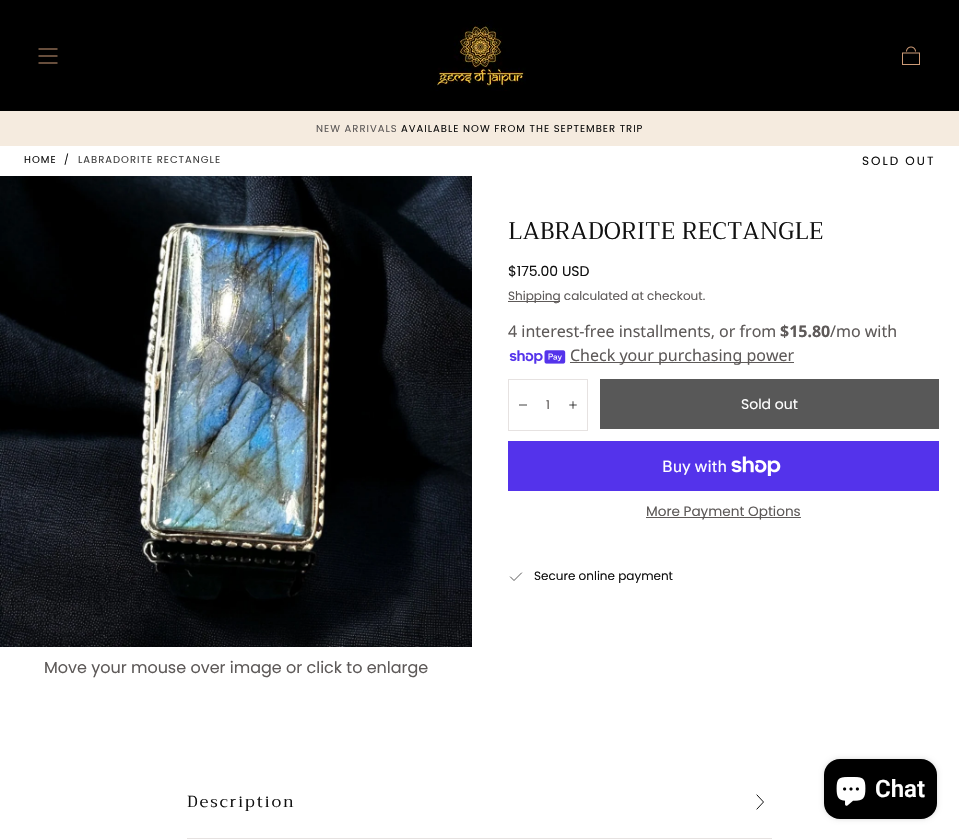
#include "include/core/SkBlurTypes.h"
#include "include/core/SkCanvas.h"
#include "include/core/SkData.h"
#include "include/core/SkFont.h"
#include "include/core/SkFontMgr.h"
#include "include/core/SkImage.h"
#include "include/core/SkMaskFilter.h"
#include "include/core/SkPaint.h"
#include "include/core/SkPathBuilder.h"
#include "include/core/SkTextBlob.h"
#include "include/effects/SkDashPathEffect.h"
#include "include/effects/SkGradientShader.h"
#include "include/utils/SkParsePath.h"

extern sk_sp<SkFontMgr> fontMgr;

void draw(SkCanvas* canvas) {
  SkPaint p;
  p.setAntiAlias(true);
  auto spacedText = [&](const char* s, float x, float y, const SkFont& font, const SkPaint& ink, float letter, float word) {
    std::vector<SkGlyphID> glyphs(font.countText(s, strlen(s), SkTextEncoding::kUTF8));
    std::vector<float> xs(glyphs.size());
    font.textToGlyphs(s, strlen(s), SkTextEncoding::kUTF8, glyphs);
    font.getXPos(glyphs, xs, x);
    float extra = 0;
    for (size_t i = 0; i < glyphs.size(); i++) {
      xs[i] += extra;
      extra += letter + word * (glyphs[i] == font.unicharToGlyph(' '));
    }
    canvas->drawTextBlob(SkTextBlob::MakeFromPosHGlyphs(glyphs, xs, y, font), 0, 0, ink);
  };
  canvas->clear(SK_ColorWHITE);
  p.setColor(SK_ColorBLACK);
  canvas->drawRect(SkRect::MakeLTRB(0, 0, 959, 111), p);
  canvas->drawImageRect(SkImages::DeferredFromEncodedData(SkData::MakeFromFileName("images/1.png")), SkRect::MakeLTRB(38, 48, 58, 64), SkSamplingOptions());
  canvas->drawImageRect(SkImages::DeferredFromEncodedData(SkData::MakeFromFileName("images/2.png")), SkRect::MakeLTRB(430, 20, 526, 91), SkSamplingOptions());
  canvas->drawImageRect(SkImages::DeferredFromEncodedData(SkData::MakeFromFileName("images/3.png")), SkRect::MakeLTRB(902, 46, 920, 65), SkSamplingOptions());
  p.setColor(SkColorSetRGB(245, 235, 223));
  canvas->drawRect(SkRect::MakeLTRB(0, 111, 959, 146), p);
  p.setColor(SkColorSetRGB(94, 90, 89));
  canvas->drawRect(SkRect::MakeLTRB(508, 301, 560, 302), p);
  canvas->drawImageRect(SkImages::DeferredFromEncodedData(SkData::MakeFromFileName("images/4.png")), SkRect::MakeLTRB(509, 350, 566, 364), SkSamplingOptions());
  canvas->drawRect(SkRect::MakeLTRB(570, 362, 794, 363), p);
  p.setStyle(SkPaint::kStroke_Style);
  p.setStrokeWidth(1);
  p.setColor(SkColorSetRGB(230, 226, 225));
  canvas->drawRect(SkRect::MakeLTRB(508.5f, 379.5f, 587.5f, 430.5f), p);
  p.setStrokeWidth(0.8f);
  p.setStrokeCap(SkPaint::kSquare_Cap);
  p.setColor(SkColorSetRGB(17, 17, 17));
  canvas->drawPath(SkPathBuilder().moveTo(519.5f, 405).lineTo(526.5f, 405).detach(), p);
  canvas->drawImageRect(SkImages::DeferredFromEncodedData(SkData::MakeFromFileName("images/5.png")), SkRect::MakeLTRB(569, 401, 577, 409), SkSamplingOptions());
  p.setStyle(SkPaint::kFill_Style);
  p.setColor(SkColorSetRGB(88, 88, 88));
  canvas->drawRect(SkRect::MakeLTRB(600, 379, 939, 429), p);
  p.setColor(SkColorSetRGB(84, 51, 235));
  canvas->drawRect(SkRect::MakeLTRB(508, 441, 939, 491), p);
  canvas->drawImageRect(SkImages::DeferredFromEncodedData(SkData::MakeFromFileName("images/6.png")), SkRect::MakeLTRB(731, 456, 781, 476), SkSamplingOptions());
  p.setColor(SkColorSetRGB(94, 90, 89));
  canvas->drawRect(SkRect::MakeLTRB(646, 517, 801, 518), p);
  p.setStyle(SkPaint::kStroke_Style);
  p.setStrokeWidth(0.7f);
  p.setColor(SkColorSetRGB(17, 17, 17));
  canvas->drawPath(SkPathBuilder().moveTo(521.5f, 573).lineTo(514, 580.5f).lineTo(510.5f, 577).detach(), p);
  canvas->drawImageRect(SkImages::DeferredFromEncodedData(SkData::MakeFromFileName("images/7.png")), SkRect::MakeLTRB(0, 176, 472, 647), SkSamplingOptions());
  p.setStrokeWidth(1);
  canvas->drawPath(SkPathBuilder().moveTo(757, 809).lineTo(763.5f, 802).lineTo(757, 795).detach(), p);
  p.setStyle(SkPaint::kFill_Style);
  p.setColor(SkColorSetRGB(230, 226, 225));
  canvas->drawRect(SkRect::MakeLTRB(187, 838, 772, 839), p);
  p.setColor(SkColorSetARGB(38, 0, 0, 0));
  p.setMaskFilter(SkMaskFilter::MakeBlur(kNormal_SkBlurStyle, 2.5f));
  canvas->drawRoundRect(SkRect::MakeLTRB(824, 759, 937, 819), 16, 16, p);
  p.setMaskFilter(nullptr);
  p.setColor(SK_ColorBLACK);
  canvas->drawRoundRect(SkRect::MakeLTRB(824, 759, 937, 819), 16, 16, p);
  canvas->drawImageRect(SkImages::DeferredFromEncodedData(SkData::MakeFromFileName("images/8.png")), SkRect::MakeLTRB(836, 777, 866, 806), SkSamplingOptions());
  SkFont font1(fontMgr->matchFamilyStyle("Poppins", SkFontStyle::Normal()), 10);
  font1.setSubpixel(true);
  p.setColor(SkColorSetRGB(94, 90, 89));
  spacedText("NEW ARRIVALS", 316, 132, font1, p, 1, 0);
  p.setColor(SkColorSetRGB(17, 17, 17));
  spacedText("AVAILABLE NOW FROM THE SEPTEMBER TRIP", 401, 132, font1, p, 1, 0);
  spacedText("HOME", 24, 163, font1, p, 1, 0);
  spacedText("/", 64, 163, font1, p, 1, 0);
  p.setColor(SkColorSetRGB(65, 65, 65));
  spacedText("LABRADORITE RECTANGLE", 78, 163, font1, p, 1, 0);
  SkFont font2(fontMgr->matchFamilyStyle("Poppins", SkFontStyle::Normal()), 12);
  font2.setSubpixel(true);
  p.setColor(SkColorSetRGB(17, 17, 17));
  spacedText("SOLD OUT", 862, 165, font2, p, 2, 0);
  SkFont font3(fontMgr->matchFamilyStyle("Trirong", SkFontStyle::Normal()), 24);
  font3.setSubpixel(true);
  canvas->drawString("LABRADORITE RECTANGLE", 508, 239, font3, p);
  SkFont font4(fontMgr->matchFamilyStyle("Poppins", SkFontStyle::Normal()), 14);
  font4.setSubpixel(true);
  canvas->drawString("$175.00 USD", 508, 276, font4, p);
  p.setColor(SkColorSetRGB(94, 90, 89));
  canvas->drawString("Shipping calculated at checkout.", 508, 300, font2, p);
  SkFont font5(fontMgr->matchFamilyStyle("Noto Sans", SkFontStyle::Normal()), 16);
  font5.setSubpixel(true);
  canvas->drawString("4 interest-free installments, or from", 508, 337, font5, p);
  SkFont font6(fontMgr->matchFamilyStyle("Noto Sans", SkFontStyle::Bold()), 16);
  font6.setSubpixel(true);
  canvas->drawString("$15.80", 780, 337, font6, p);
  canvas->drawString("/mo with", 830, 337, font5, p);
  canvas->drawString("Check your purchasing power", 570, 361, font5, p);
  canvas->drawString("1", 546, 409, font2, p);
  p.setColor(SK_ColorWHITE);
  canvas->drawString("Sold out", 741, 409, font4, p);
  SkFont font7(fontMgr->matchFamilyStyle("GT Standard", SkFontStyle::Normal()), 16);
  font7.setSubpixel(true);
  canvas->drawString("Buy with", 662, 472, font7, p);
  SkFont font8(fontMgr->matchFamilyStyle("Poppins", SkFontStyle::Normal()), 13.6f);
  font8.setSubpixel(true);
  p.setColor(SkColorSetRGB(94, 90, 89));
  canvas->drawString("More Payment Options", 646, 516, font8, p);
  p.setColor(SkColorSetRGB(17, 17, 17));
  canvas->drawString("Secure online payment", 534, 580, font2, p);
  SkFont font9(fontMgr->matchFamilyStyle("Poppins", SkFontStyle::Normal()), 16);
  font9.setSubpixel(true);
  p.setColor(SkColorSetRGB(94, 90, 89));
  canvas->drawString("Move your mouse over image or click to enlarge", 44, 673, font9, p);
  SkFont font10(fontMgr->matchFamilyStyle("Trirong", SkFontStyle::Normal()), 16);
  font10.setSubpixel(true);
  p.setColor(SkColorSetRGB(17, 17, 17));
  spacedText("Description", 187, 807, font10, p, 2, 0);
  SkFont font11(fontMgr->matchFamilyStyle("Roboto", SkFontStyle(600, SkFontStyle::kNormal_Width, SkFontStyle::kUpright_Slant)), 24);
  font11.setSubpixel(true);
  p.setColor(SK_ColorWHITE);
  canvas->drawString("Chat", 875, 797, font11, p);
}
